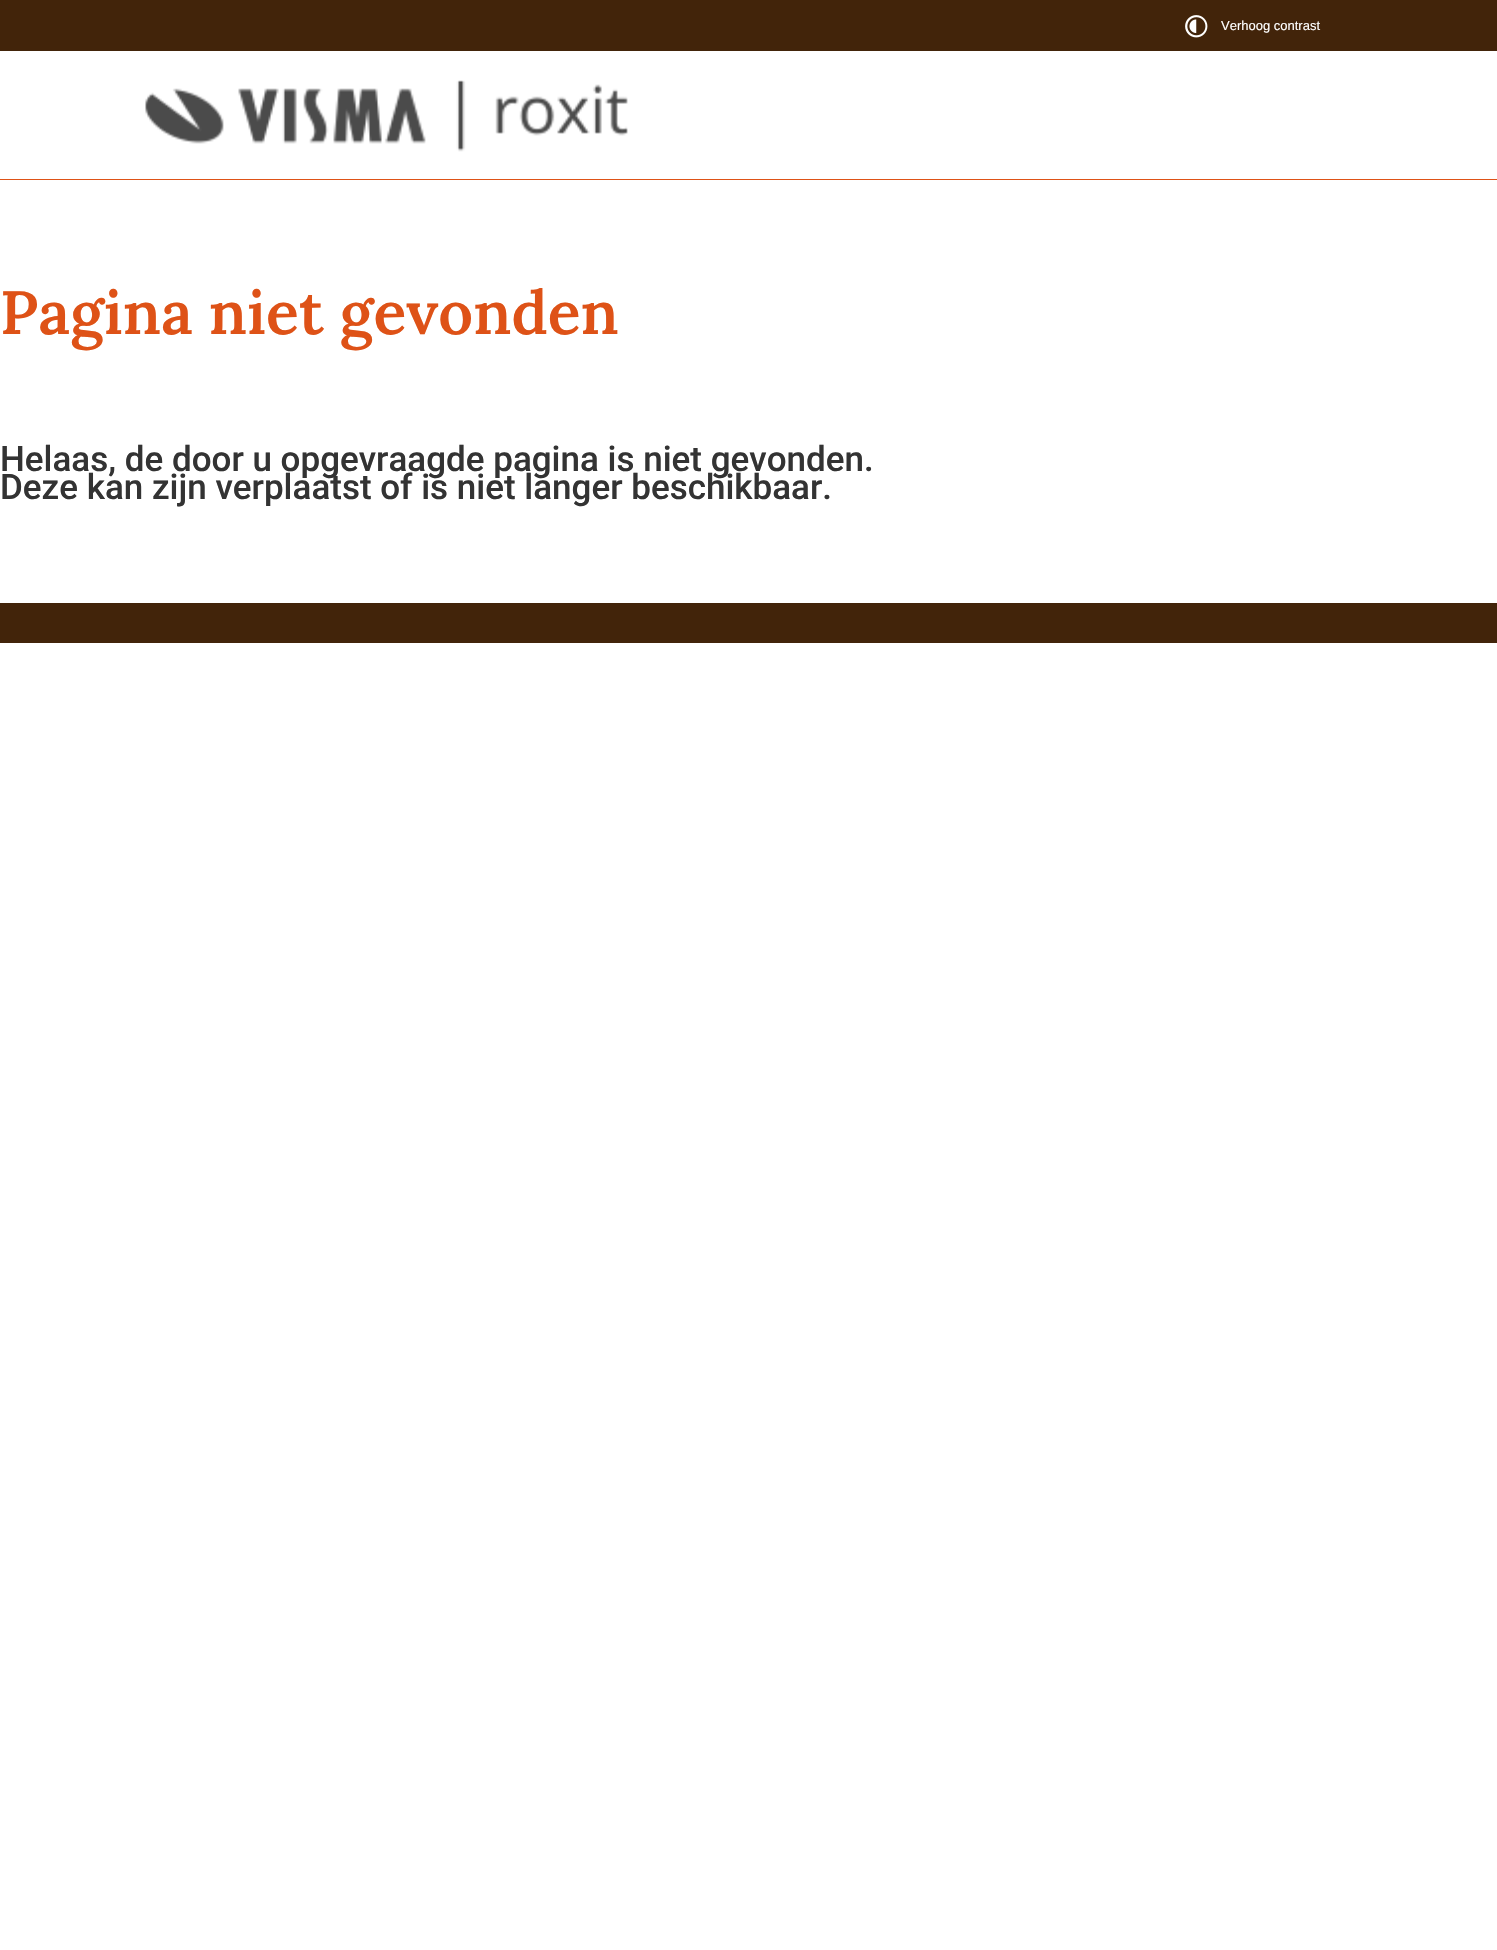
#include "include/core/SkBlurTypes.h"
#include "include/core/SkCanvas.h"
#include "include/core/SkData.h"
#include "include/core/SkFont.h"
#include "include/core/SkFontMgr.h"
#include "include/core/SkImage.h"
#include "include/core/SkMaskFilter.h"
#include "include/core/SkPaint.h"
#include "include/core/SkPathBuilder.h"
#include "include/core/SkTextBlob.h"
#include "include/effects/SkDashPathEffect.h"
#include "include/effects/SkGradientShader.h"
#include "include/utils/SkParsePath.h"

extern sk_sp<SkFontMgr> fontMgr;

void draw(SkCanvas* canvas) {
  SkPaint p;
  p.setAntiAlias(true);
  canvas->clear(SK_ColorWHITE);
  p.setColor(SkColorSetRGB(222, 82, 23));
  canvas->drawRect(SkRect::MakeLTRB(0, 179, 1497, 180), p);
  p.setColor(SkColorSetRGB(66, 36, 10));
  canvas->drawRect(SkRect::MakeLTRB(0, 0, 1497, 51), p);
  canvas->drawImageRect(SkImages::DeferredFromEncodedData(SkData::MakeFromFileName("images/1.png")), SkRect::MakeLTRB(1185, 15, 1208, 38), SkSamplingOptions());
  canvas->drawImageRect(SkImages::DeferredFromEncodedData(SkData::MakeFromFileName("images/2.png")), SkRect::MakeLTRB(145, 80, 628, 152), SkSamplingOptions());
  canvas->drawRect(SkRect::MakeLTRB(0, 603, 1497, 643), p);
  SkFont font1(fontMgr->matchFamilyStyle("Liberation Sans", SkFontStyle::Normal()), 13);
  font1.setSubpixel(true);
  p.setColor(SK_ColorWHITE);
  canvas->drawString("Verhoog contrast", 1221, 30, font1, p);
  SkFont font2(fontMgr->matchFamilyStyle("Lora", SkFontStyle(600, SkFontStyle::kNormal_Width, SkFontStyle::kUpright_Slant)), 60.9f);
  font2.setSubpixel(true);
  p.setColor(SkColorSetRGB(222, 82, 23));
  canvas->drawString("Pagina niet gevonden", 0, 334, font2, p);
  SkFont font3(fontMgr->matchFamilyStyle("Roboto", SkFontStyle(500, SkFontStyle::kNormal_Width, SkFontStyle::kUpright_Slant)), 35);
  font3.setSubpixel(true);
  p.setColor(SkColorSetRGB(51, 51, 51));
  canvas->drawString("Helaas, de door u opgevraagde pagina is niet gevonden.", 0, 471, font3, p);
  canvas->drawString("Deze kan zijn verplaatst of is niet langer beschikbaar.", 0, 499, font3, p);
}
